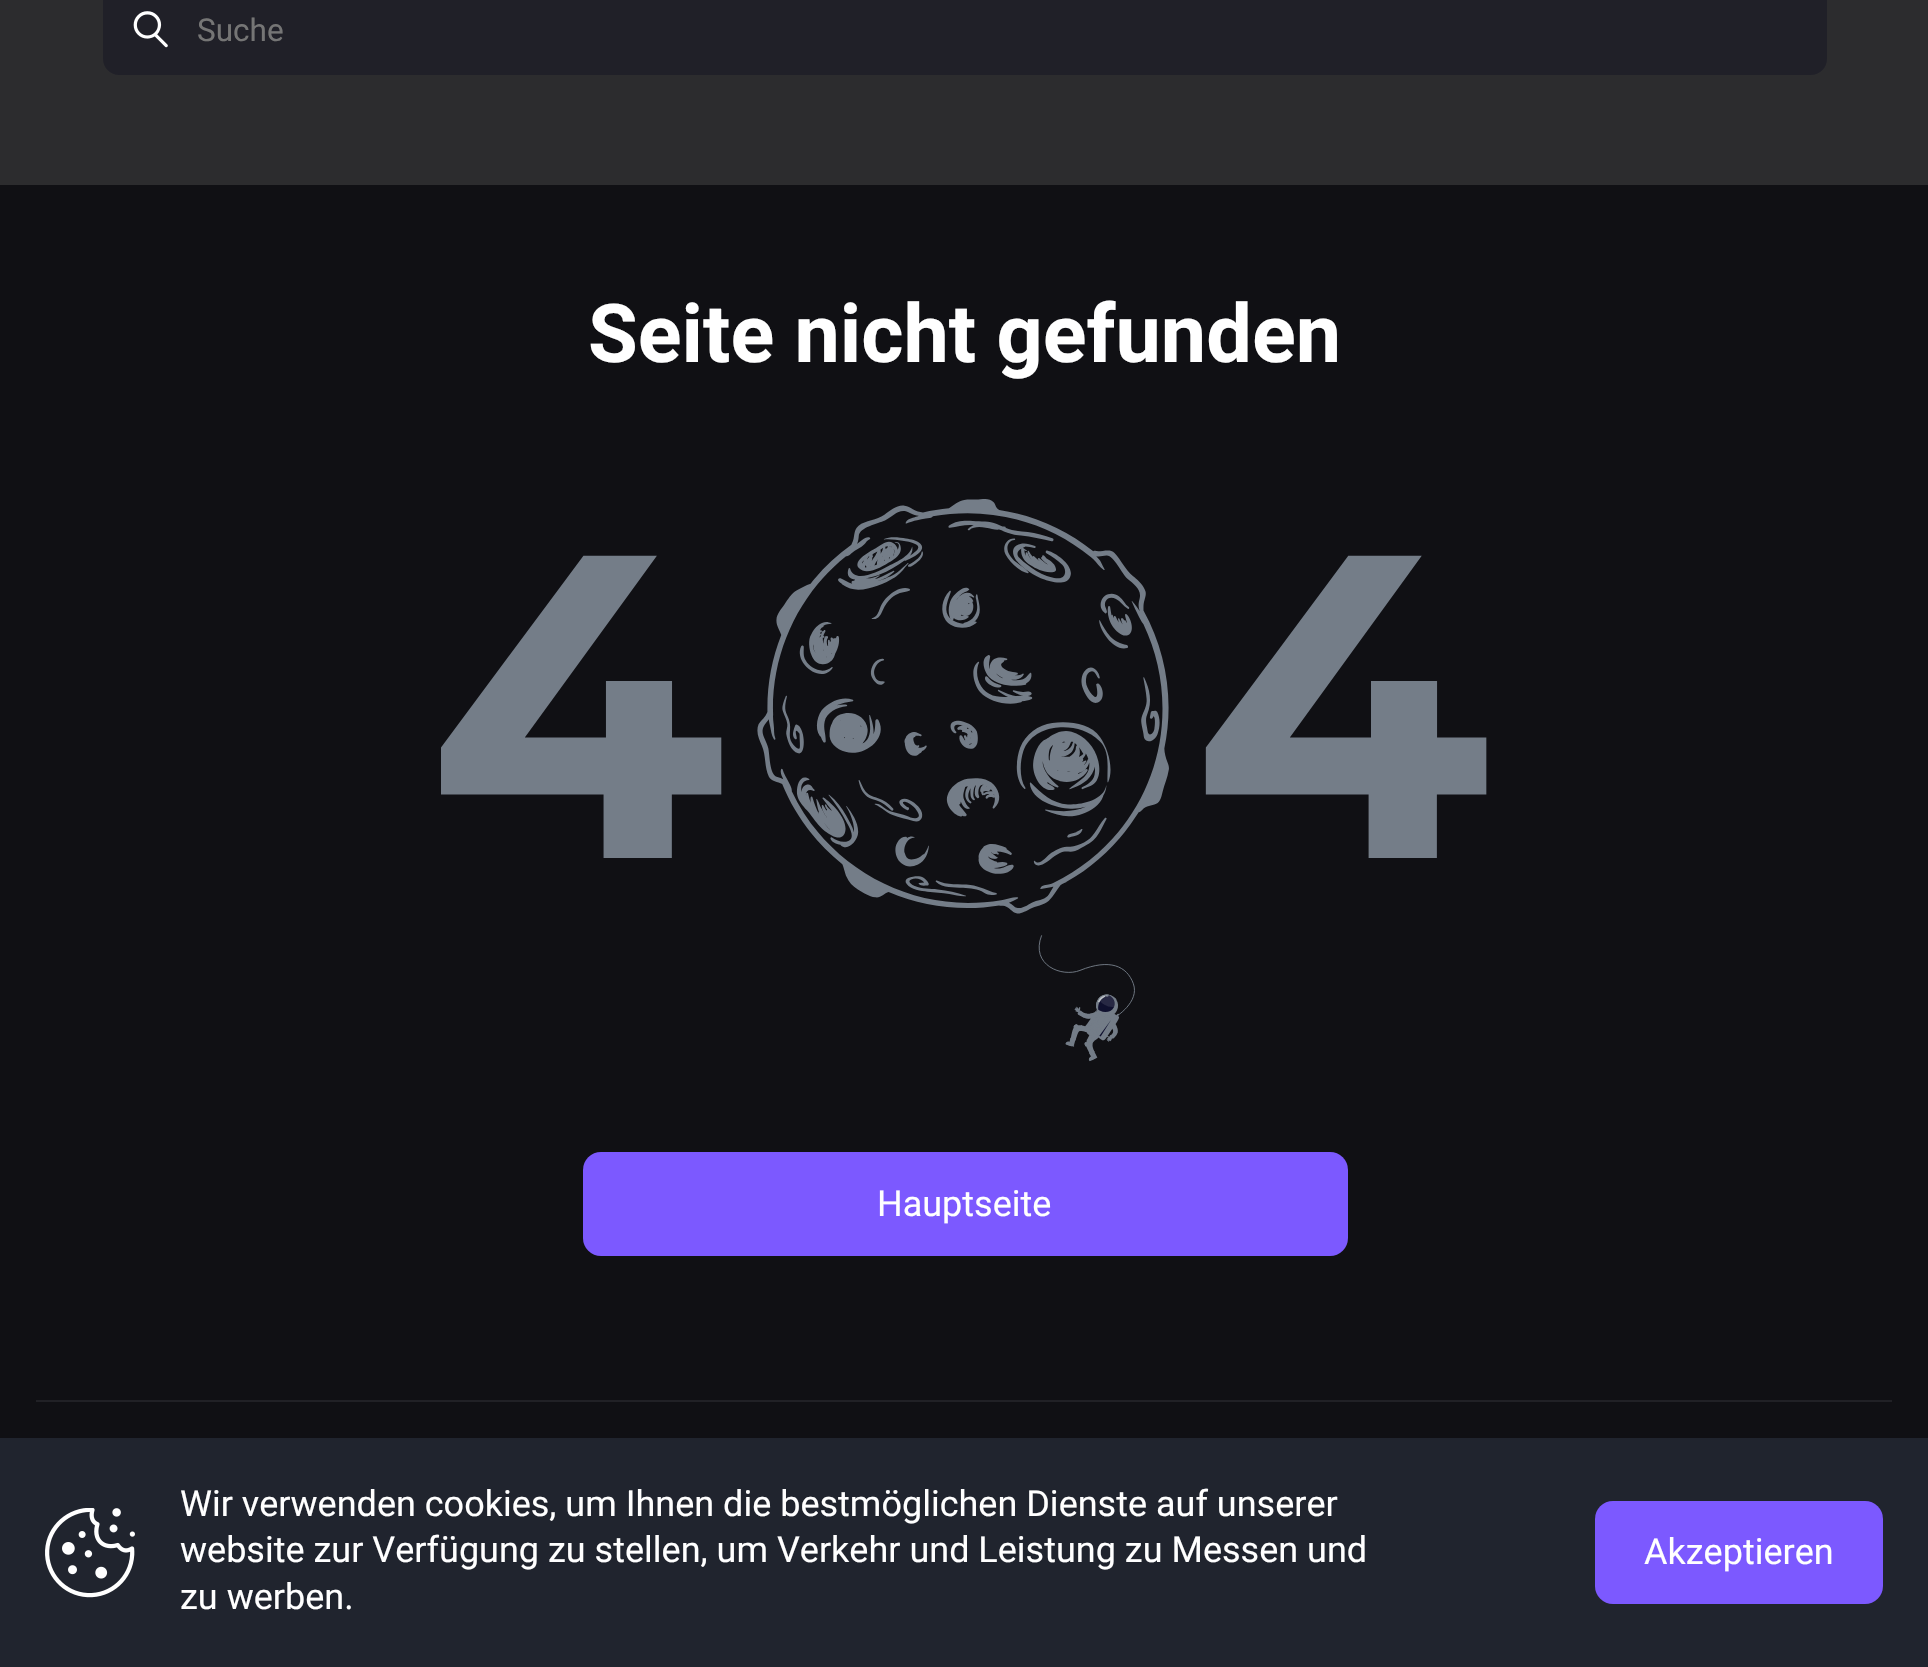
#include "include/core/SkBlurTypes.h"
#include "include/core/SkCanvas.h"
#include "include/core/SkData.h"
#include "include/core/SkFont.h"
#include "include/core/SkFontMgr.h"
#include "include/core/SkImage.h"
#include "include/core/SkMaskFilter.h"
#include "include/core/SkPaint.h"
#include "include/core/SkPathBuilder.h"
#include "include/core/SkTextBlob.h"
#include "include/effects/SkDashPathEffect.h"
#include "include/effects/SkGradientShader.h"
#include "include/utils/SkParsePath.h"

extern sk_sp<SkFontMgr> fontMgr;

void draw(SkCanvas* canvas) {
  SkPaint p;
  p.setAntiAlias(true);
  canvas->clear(SkColorSetRGB(16, 16, 20));
  p.setColor(SkColorSetRGB(44, 44, 46));
  canvas->drawRect(SkRect::MakeLTRB(0, 0, 1928, 185), p);
  p.setColor(SkColorSetRGB(32, 32, 40));
  canvas->drawRoundRect(SkRect::MakeLTRB(102, -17, 1828, 76), 17, 17, p);
  p.setStyle(SkPaint::kStroke_Style);
  p.setStrokeWidth(2);
  p.setColor(SkColorSetRGB(44, 44, 46));
  canvas->drawRoundRect(SkRect::MakeLTRB(102, -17, 1828, 76), 17, 17, p);
  canvas->drawImageRect(SkImages::DeferredFromEncodedData(SkData::MakeFromFileName("images/1.png")), SkRect::MakeLTRB(133, 11, 168, 48), SkSamplingOptions());
  canvas->drawImageRect(SkImages::DeferredFromEncodedData(SkData::MakeFromFileName("images/2.png")), SkRect::MakeLTRB(441, 499, 1487, 1062), SkSamplingOptions());
  p.setStyle(SkPaint::kFill_Style);
  p.setColor(SkColorSetRGB(124, 89, 255));
  canvas->drawRoundRect(SkRect::MakeLTRB(583, 1152, 1348, 1256), 18, 18, p);
  p.setColor(SkColorSetRGB(33, 33, 38));
  canvas->drawRect(SkRect::MakeLTRB(36, 1400, 1892, 1402), p);
  p.setColor(SkColorSetRGB(32, 36, 46));
  canvas->drawRect(SkRect::MakeLTRB(0, 1438, 1928, 1667), p);
  canvas->drawImageRect(SkImages::DeferredFromEncodedData(SkData::MakeFromFileName("images/3.png")), SkRect::MakeLTRB(45, 1508, 135, 1598), SkSamplingOptions());
  p.setColor(SkColorSetRGB(124, 89, 255));
  canvas->drawRoundRect(SkRect::MakeLTRB(1595, 1501, 1883, 1604), 18, 18, p);
  SkFont font1(fontMgr->matchFamilyStyle("Roboto", SkFontStyle::Normal()), 31.5f);
  font1.setSubpixel(true);
  p.setColor(SkColorSetRGB(117, 117, 117));
  canvas->drawString("Suche", 197, 41, font1, p);
  SkFont font2(fontMgr->matchFamilyStyle("Roboto", SkFontStyle::Bold()), 81);
  font2.setSubpixel(true);
  p.setColor(SK_ColorWHITE);
  canvas->drawString("Seite nicht gefunden", 588, 362, font2, p);
  SkFont font3(fontMgr->matchFamilyStyle("Roboto", SkFontStyle::Normal()), 36);
  font3.setSubpixel(true);
  canvas->drawString("Hauptseite", 877, 1216, font3, p);
  canvas->drawString("Wir verwenden cookies, um Ihnen die bestmöglichen Dienste auf unserer", 180, 1516, font3, p);
  canvas->drawString("website zur Verfügung zu stellen, um Verkehr und Leistung zu Messen und", 180, 1562, font3, p);
  canvas->drawString("zu werben.", 180, 1609, font3, p);
  canvas->drawString("Akzeptieren", 1644, 1564, font3, p);
}
